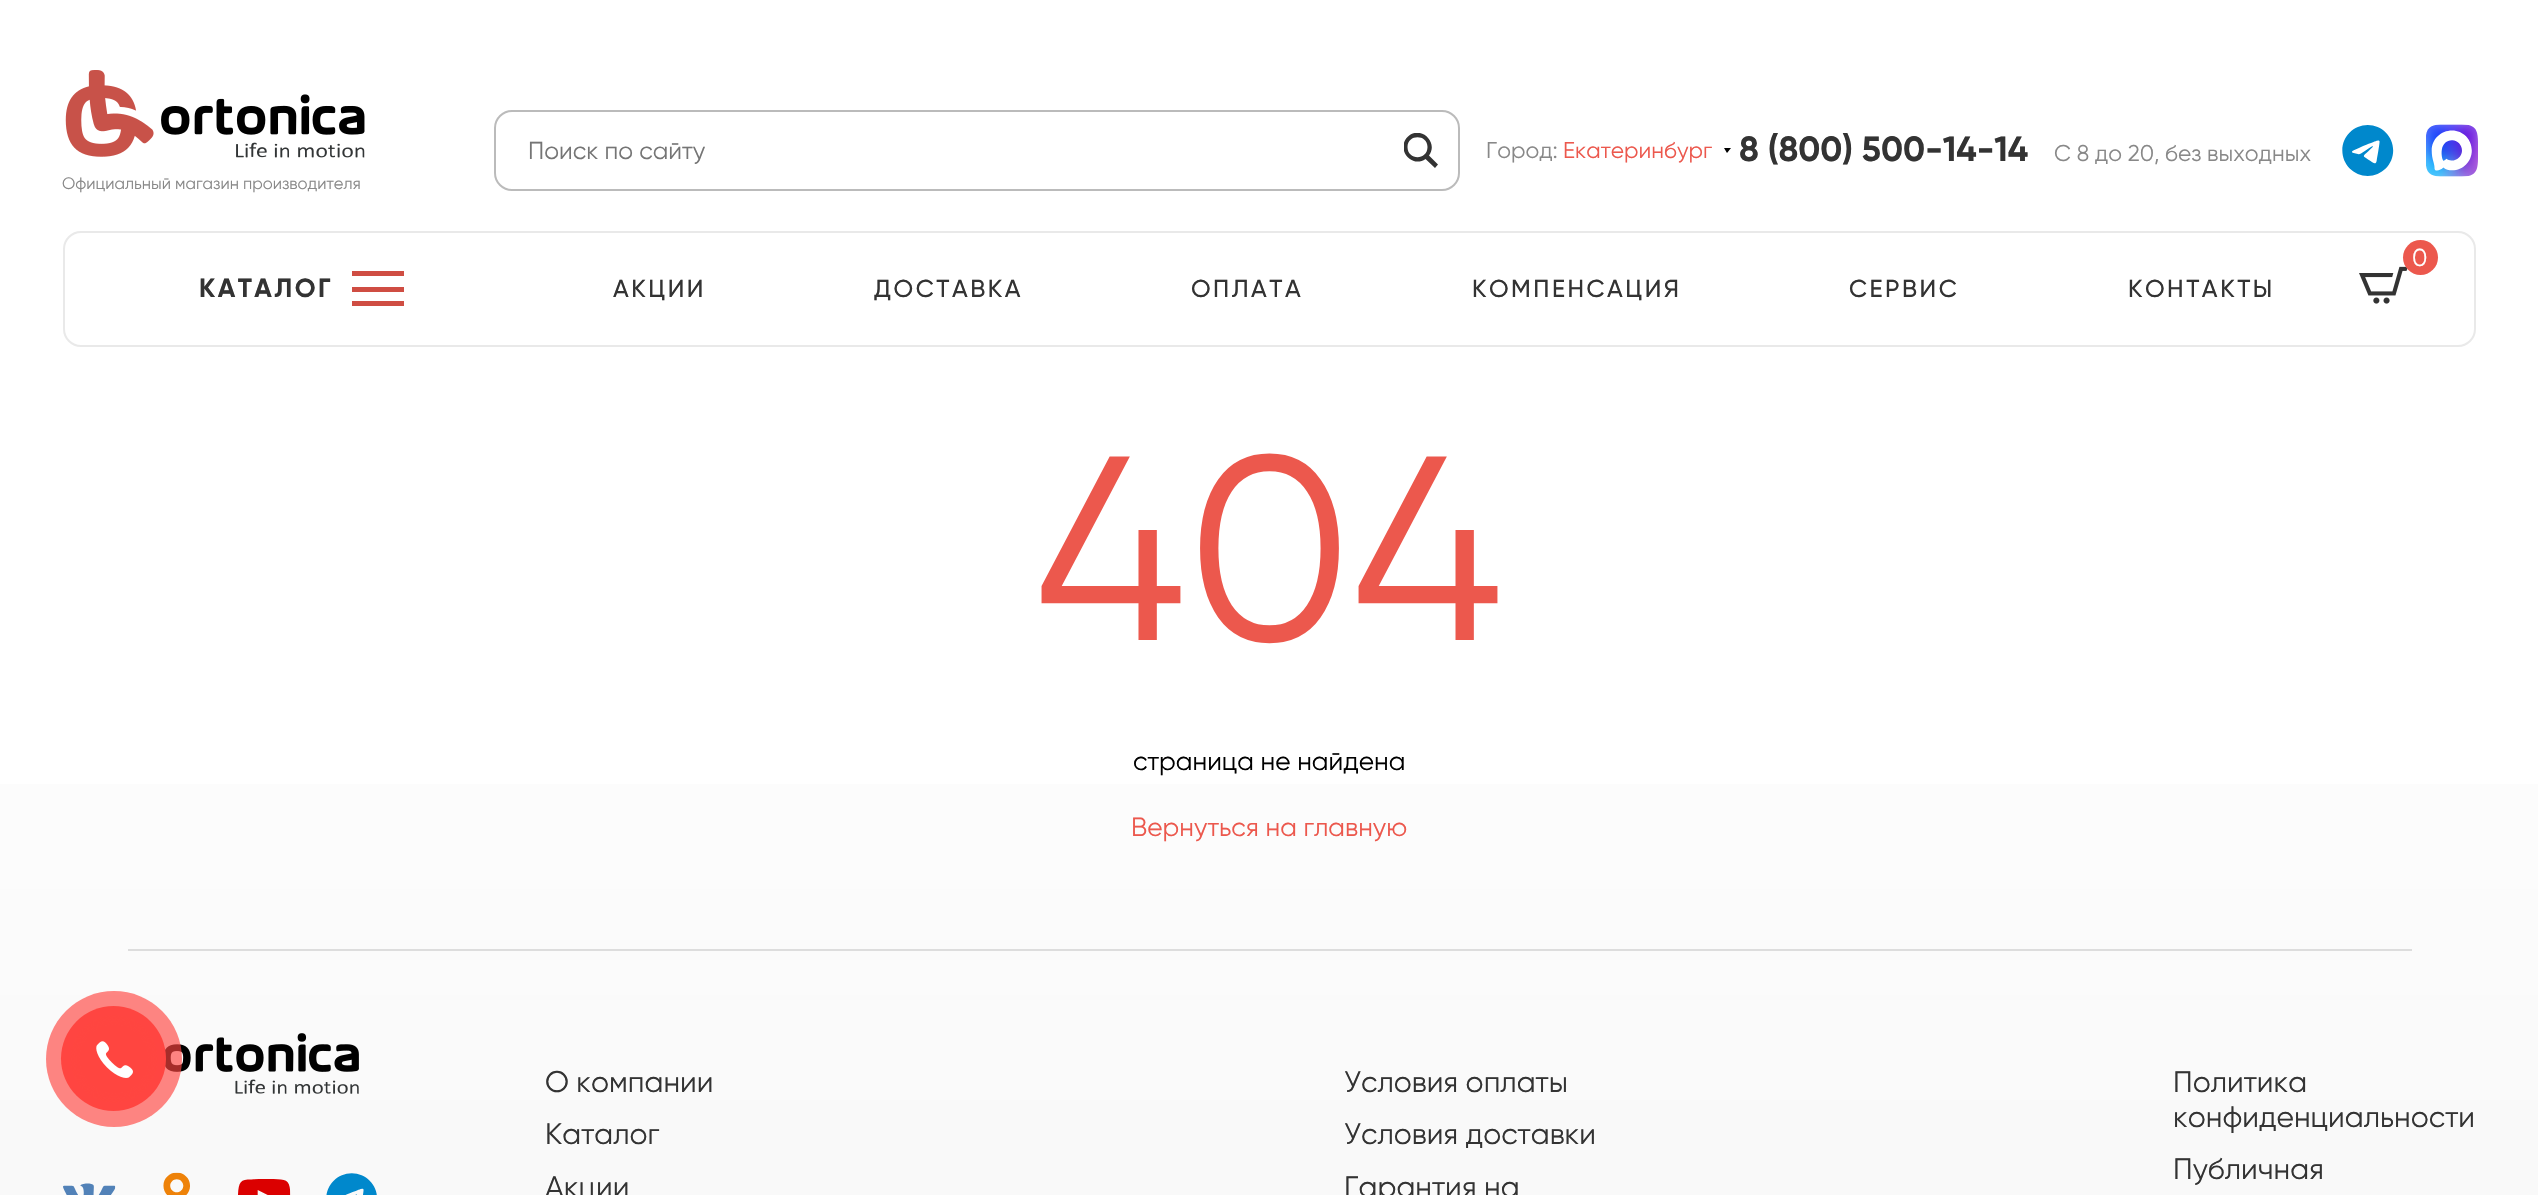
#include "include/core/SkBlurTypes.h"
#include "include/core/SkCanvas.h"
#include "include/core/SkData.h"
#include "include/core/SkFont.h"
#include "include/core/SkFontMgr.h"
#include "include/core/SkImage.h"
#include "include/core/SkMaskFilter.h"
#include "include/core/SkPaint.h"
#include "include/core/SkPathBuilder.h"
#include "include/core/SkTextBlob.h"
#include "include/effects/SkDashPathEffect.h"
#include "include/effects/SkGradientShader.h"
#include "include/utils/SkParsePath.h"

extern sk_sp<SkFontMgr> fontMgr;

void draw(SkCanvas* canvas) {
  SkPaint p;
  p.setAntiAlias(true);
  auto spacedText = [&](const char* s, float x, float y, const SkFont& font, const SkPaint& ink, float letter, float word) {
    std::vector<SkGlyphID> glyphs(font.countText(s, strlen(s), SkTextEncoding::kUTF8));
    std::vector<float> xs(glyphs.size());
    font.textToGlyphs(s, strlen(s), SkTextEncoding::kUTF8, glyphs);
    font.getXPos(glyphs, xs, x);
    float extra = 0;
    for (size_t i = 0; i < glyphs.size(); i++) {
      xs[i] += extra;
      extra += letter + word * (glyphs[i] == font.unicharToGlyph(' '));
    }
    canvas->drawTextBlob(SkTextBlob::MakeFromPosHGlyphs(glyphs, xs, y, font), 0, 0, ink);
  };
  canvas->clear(SK_ColorWHITE);
  p.setStyle(SkPaint::kStroke_Style);
  p.setStrokeWidth(2);
  p.setColor(SkColorSetRGB(187, 187, 187));
  canvas->drawRoundRect(SkRect::MakeLTRB(495, 111, 1459, 190), 17, 17, p);
  canvas->save();
  canvas->clipRect(SkRect::MakeLTRB(1404, 133, 1438, 168));
  p.setStyle(SkPaint::kFill_Style);
  p.setColor(SkColorSetRGB(51, 51, 51));
  canvas->drawPath(SkPathBuilder().moveTo(1438, 164.5f).lineTo(1429, 155.5f).cubicTo(1439, 142, 1420, 124.5f, 1407.5f, 137).cubicTo(1395.5f, 149.5f, 1412, 168.5f, 1425.5f, 159).lineTo(1435, 168).close().moveTo(1407.5f, 147).cubicTo(1407.5f, 134, 1427.5f, 134, 1427.5f, 147).cubicTo(1427.5f, 160.5f, 1407.5f, 160.5f, 1407.5f, 147).close().detach(), p);
  canvas->restore();
  p.setColor(SK_ColorBLACK);
  canvas->drawPath(SkPathBuilder().moveTo(1724, 148).lineTo(1731, 148).lineTo(1727, 153).close().detach(), p);
  canvas->drawImageRect(SkImages::DeferredFromEncodedData(SkData::MakeFromFileName("images/1.png")), SkRect::MakeLTRB(2342, 125, 2394, 176), SkSamplingOptions());
  canvas->drawImageRect(SkImages::DeferredFromEncodedData(SkData::MakeFromFileName("images/2.png")), SkRect::MakeLTRB(2426, 124, 2478, 177), SkSamplingOptions());
  canvas->drawImageRect(SkImages::DeferredFromEncodedData(SkData::MakeFromFileName("images/3.png")), SkRect::MakeLTRB(65, 70, 365, 158), SkSamplingOptions());
  p.setStyle(SkPaint::kStroke_Style);
  p.setColor(SkColorSetRGB(233, 233, 233));
  canvas->drawRoundRect(SkRect::MakeLTRB(64, 232, 2475, 346), 17, 17, p);
  canvas->drawImageRect(SkImages::DeferredFromEncodedData(SkData::MakeFromFileName("images/4.png")), SkRect::MakeLTRB(2359, 266, 2408, 304), SkSamplingOptions());
  p.setStyle(SkPaint::kFill_Style);
  p.setColor(SkColorSetRGB(236, 88, 77));
  canvas->drawCircle(2420.5f, 257.5f, 17.5f, p);
  p.setColor(SkColorSetRGB(207, 77, 67));
  canvas->drawRect(SkRect::MakeLTRB(352, 301, 404, 306), p);
  canvas->drawRect(SkRect::MakeLTRB(352, 271, 404, 276), p);
  canvas->drawRect(SkRect::MakeLTRB(352, 287, 404, 292), p);
  {
    const SkColor colors[] = {SK_ColorWHITE, SK_ColorWHITE, SkColorSetRGB(244, 244, 244), SK_ColorWHITE};
    const float stops[] = {0, 0.3f, 0.97f, 1};
    const SkPoint ends[] = {{1270, 0}, {1270, 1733}};
    p.setShader(SkGradientShader::MakeLinear(ends, colors, stops, 4, SkTileMode::kClamp));
    p.setAlpha(255);
  }
  canvas->drawRect(SkRect::MakeLTRB(0, 784, 2538, 1195), p);
  canvas->drawImageRect(SkImages::DeferredFromEncodedData(SkData::MakeFromFileName("images/6.png")), SkRect::MakeLTRB(165, 1033, 359, 1094), SkSamplingOptions());
  p.setShader(nullptr);
  p.setColor(SkColorSetRGB(255, 69, 64));
  canvas->drawCircle(113.5f, 1058.5f, 52.5f, p);
  canvas->drawImageRect(SkImages::DeferredFromEncodedData(SkData::MakeFromFileName("images/5.png")), SkRect::MakeLTRB(96, 1041, 133, 1078), SkSamplingOptions());
  {
    const SkColor colors[] = {SkColorSetARGB(0, 255, 69, 64), SkColorSetARGB(166, 255, 69, 64)};
    const float stops[] = {0.35f, 0.45f};
    p.setShader(SkGradientShader::MakeRadial({114, 1059}, 97, colors, stops, 2, SkTileMode::kClamp));
    p.setAlpha(255);
  }
  canvas->drawCircle(114, 1059, 68, p);
  p.setShader(nullptr);
  p.setColor(SkColorSetRGB(221, 221, 221));
  canvas->drawRect(SkRect::MakeLTRB(128, 949, 2412, 951), p);
  canvas->drawImageRect(SkImages::DeferredFromEncodedData(SkData::MakeFromFileName("images/7.png")), SkRect::MakeLTRB(63, 1183, 116, 1195), SkSamplingOptions());
  canvas->drawImageRect(SkImages::DeferredFromEncodedData(SkData::MakeFromFileName("images/8.png")), SkRect::MakeLTRB(163, 1172, 190, 1195), SkSamplingOptions());
  canvas->drawImageRect(SkImages::DeferredFromEncodedData(SkData::MakeFromFileName("images/9.png")), SkRect::MakeLTRB(238, 1179, 291, 1195), SkSamplingOptions());
  canvas->drawImageRect(SkImages::DeferredFromEncodedData(SkData::MakeFromFileName("images/10.png")), SkRect::MakeLTRB(326, 1173, 377, 1195), SkSamplingOptions());
  SkFont font1(fontMgr->matchFamilyStyle("Gilroy", SkFontStyle::Normal()), 24.5f);
  font1.setSubpixel(true);
  p.setColor(SkColorSetRGB(117, 117, 117));
  canvas->drawString("Поиск по сайту", 528, 159, font1, p);
  SkFont font2(fontMgr->matchFamilyStyle("Gilroy", SkFontStyle::Normal()), 22.75f);
  font2.setSubpixel(true);
  p.setColor(SkColorSetRGB(136, 136, 136));
  canvas->drawString("Город:", 1486, 158, font2, p);
  p.setColor(SkColorSetRGB(236, 88, 77));
  canvas->drawString("Екатеринбург", 1563, 158, font2, p);
  SkFont font3(fontMgr->matchFamilyStyle("Gilroy", SkFontStyle::Bold()), 35);
  font3.setSubpixel(true);
  p.setColor(SkColorSetRGB(51, 51, 51));
  canvas->drawString("8 (800) 500-14-14", 1739, 161, font3, p);
  p.setColor(SkColorSetRGB(136, 136, 136));
  canvas->drawString("С 8 до 20, без выходных", 2054, 161, font2, p);
  SkFont font4(fontMgr->matchFamilyStyle("Gilroy", SkFontStyle::Normal()), 16.5f);
  font4.setSubpixel(true);
  canvas->drawString("Официальный магазин производителя", 62, 189, font4, p);
  p.setColor(SK_ColorWHITE);
  canvas->drawString("0", 2412, 266, font1, p);
  SkFont font5(fontMgr->matchFamilyStyle("Gilroy", SkFontStyle::Bold()), 26.25f);
  font5.setSubpixel(true);
  p.setColor(SkColorSetRGB(51, 51, 51));
  spacedText("КАТАЛОГ", 199, 297, font5, p, 2.5f, 0);
  SkFont font6(fontMgr->matchFamilyStyle("Gilroy", SkFontStyle(500, SkFontStyle::kNormal_Width, SkFontStyle::kUpright_Slant)), 24.5f);
  font6.setSubpixel(true);
  spacedText("АКЦИИ", 613, 297, font6, p, 2.5f, 0);
  spacedText("ДОСТАВКА", 874, 297, font6, p, 2.5f, 0);
  spacedText("ОПЛАТА", 1191, 297, font6, p, 2.5f, 0);
  spacedText("КОМПЕНСАЦИЯ", 1472, 297, font6, p, 2.5f, 0);
  spacedText("СЕРВИС", 1849, 297, font6, p, 2.5f, 0);
  spacedText("КОНТАКТЫ", 2128, 297, font6, p, 2.5f, 0);
  SkFont font7(fontMgr->matchFamilyStyle("Gilroy", SkFontStyle::Normal()), 262);
  font7.setSubpixel(true);
  p.setColor(SkColorSetRGB(236, 88, 77));
  canvas->drawString("404", 1035, 640, font7, p);
  SkFont font8(fontMgr->matchFamilyStyle("Gilroy", SkFontStyle::Normal()), 26.25f);
  font8.setSubpixel(true);
  p.setColor(SK_ColorBLACK);
  canvas->drawString("страница не найдена", 1133, 770, font8, p);
  p.setColor(SkColorSetRGB(236, 88, 77));
  canvas->drawString("Вернуться на главную", 1131, 836, font8, p);
  SkFont font9(fontMgr->matchFamilyStyle("Gilroy", SkFontStyle::Normal()), 29.75f);
  font9.setSubpixel(true);
  p.setColor(SkColorSetRGB(51, 51, 51));
  canvas->drawString("О компании", 545, 1092, font9, p);
  canvas->drawString("Каталог", 545, 1144, font9, p);
  canvas->drawString("Акции", 545, 1197, font9, p);
  canvas->drawString("Условия оплаты", 1344, 1092, font9, p);
  canvas->drawString("Условия доставки", 1344, 1144, font9, p);
  canvas->drawString("Гарантия на", 1344, 1197, font9, p);
  canvas->drawString("Политика", 2173, 1092, font9, p);
  canvas->drawString("конфиденциальности", 2173, 1127, font9, p);
  canvas->drawString("Публичная", 2173, 1179, font9, p);
}
